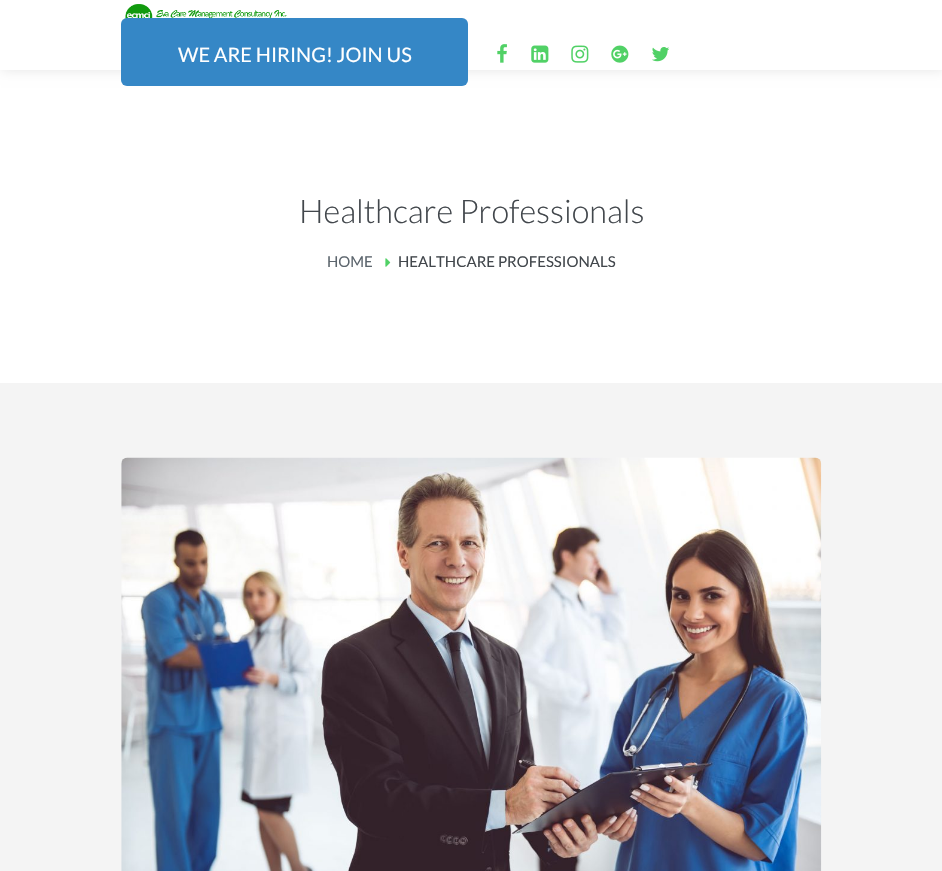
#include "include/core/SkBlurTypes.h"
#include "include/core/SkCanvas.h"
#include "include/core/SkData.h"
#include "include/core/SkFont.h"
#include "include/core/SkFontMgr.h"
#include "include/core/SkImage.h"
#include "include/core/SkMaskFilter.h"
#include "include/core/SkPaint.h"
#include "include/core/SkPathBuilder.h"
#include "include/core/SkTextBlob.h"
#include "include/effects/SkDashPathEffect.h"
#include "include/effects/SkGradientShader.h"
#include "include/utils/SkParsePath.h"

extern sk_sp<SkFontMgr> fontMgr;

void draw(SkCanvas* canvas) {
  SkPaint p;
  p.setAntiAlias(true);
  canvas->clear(SkColorSetRGB(244, 244, 244));
  p.setColor(SK_ColorWHITE);
  canvas->drawRect(SkRect::MakeLTRB(0, 70, 942, 383), p);
  p.setColor(SkColorSetARGB(26, 0, 0, 0));
  p.setMaskFilter(SkMaskFilter::MakeBlur(kNormal_SkBlurStyle, 6));
  canvas->drawRect(SkRect::MakeLTRB(1, 0, 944, 70), p);
  p.setMaskFilter(nullptr);
  p.setColor(SK_ColorWHITE);
  canvas->drawRect(SkRect::MakeLTRB(0, 0, 942, 70), p);
  canvas->drawImageRect(SkImages::DeferredFromEncodedData(SkData::MakeFromFileName("images/1.png")), SkRect::MakeLTRB(125, 4, 287, 19), SkSamplingOptions());
  p.setColor(SkColorSetRGB(53, 135, 198));
  canvas->drawRoundRect(SkRect::MakeLTRB(121, 18, 468, 86), 6, 6, p);
  canvas->drawImageRect(SkImages::DeferredFromEncodedData(SkData::MakeFromFileName("images/2.png")), SkRect::MakeLTRB(497, 44, 507, 63), SkSamplingOptions());
  canvas->drawImageRect(SkImages::DeferredFromEncodedData(SkData::MakeFromFileName("images/3.png")), SkRect::MakeLTRB(531, 45, 549, 63), SkSamplingOptions());
  canvas->drawImageRect(SkImages::DeferredFromEncodedData(SkData::MakeFromFileName("images/4.png")), SkRect::MakeLTRB(571, 45, 589, 63), SkSamplingOptions());
  canvas->drawImageRect(SkImages::DeferredFromEncodedData(SkData::MakeFromFileName("images/5.png")), SkRect::MakeLTRB(611, 45, 629, 63), SkSamplingOptions());
  canvas->drawImageRect(SkImages::DeferredFromEncodedData(SkData::MakeFromFileName("images/6.png")), SkRect::MakeLTRB(652, 47, 670, 62), SkSamplingOptions());
  canvas->drawImageRect(SkImages::DeferredFromEncodedData(SkData::MakeFromFileName("images/7.png")), SkRect::MakeLTRB(385, 258, 391, 267), SkSamplingOptions());
  canvas->drawImageRect(SkImages::DeferredFromEncodedData(SkData::MakeFromFileName("images/8.png")), SkRect::MakeLTRB(121, 457, 822, 871), SkSamplingOptions());
  SkFont font1(fontMgr->matchFamilyStyle("Lato", SkFontStyle::Normal()), 20);
  font1.setSubpixel(true);
  p.setColor(SK_ColorWHITE);
  canvas->drawString("WE ARE HIRING! JOIN US", 178, 62, font1, p);
  SkFont font2(fontMgr->matchFamilyStyle("Lato", SkFontStyle(300, SkFontStyle::kNormal_Width, SkFontStyle::kUpright_Slant)), 32.5f);
  font2.setSubpixel(true);
  p.setColor(SkColorSetRGB(66, 71, 76));
  canvas->drawString("Healthcare Professionals", 299, 223, font2, p);
  SkFont font3(fontMgr->matchFamilyStyle("Lato", SkFontStyle::Normal()), 15);
  font3.setSubpixel(true);
  p.setColor(SkColorSetRGB(92, 101, 109));
  canvas->drawString("HOME", 327, 267, font3, p);
  p.setColor(SkColorSetRGB(66, 71, 76));
  canvas->drawString("HEALTHCARE PROFESSIONALS", 398, 267, font3, p);
}
